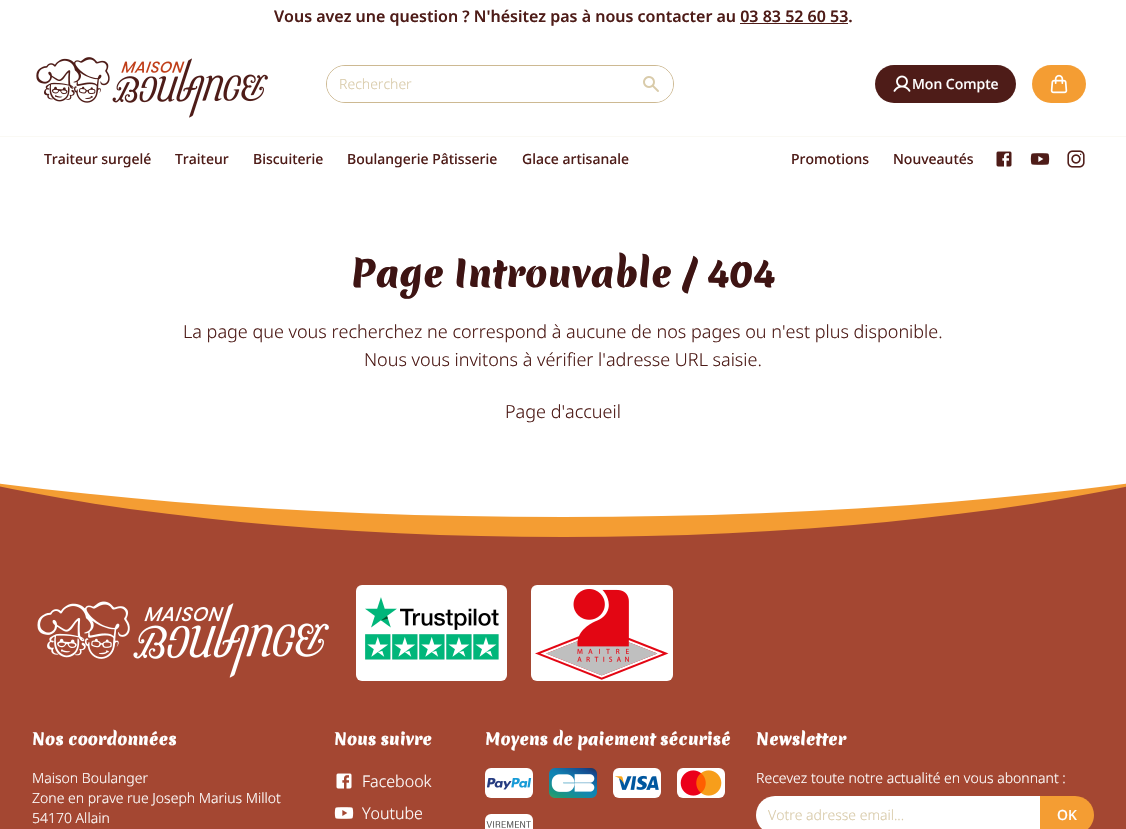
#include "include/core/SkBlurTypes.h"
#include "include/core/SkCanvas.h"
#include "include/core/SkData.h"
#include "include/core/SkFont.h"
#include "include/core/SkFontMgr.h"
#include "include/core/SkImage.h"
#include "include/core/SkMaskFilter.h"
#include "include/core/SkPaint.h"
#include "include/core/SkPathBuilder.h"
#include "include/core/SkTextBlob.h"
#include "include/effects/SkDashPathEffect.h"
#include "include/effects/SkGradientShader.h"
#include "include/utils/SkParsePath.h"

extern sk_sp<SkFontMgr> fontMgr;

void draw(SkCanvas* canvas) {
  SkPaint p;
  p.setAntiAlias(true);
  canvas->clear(SK_ColorWHITE);
  p.setColor(SkColorSetRGB(78, 28, 24));
  canvas->drawRect(SkRect::MakeLTRB(740, 23, 848, 24), p);
  p.setColor(SkColorSetRGB(250, 249, 244));
  canvas->drawRect(SkRect::MakeLTRB(0, 136, 1126, 137), p);
  canvas->drawImageRect(SkImages::DeferredFromEncodedData(SkData::MakeFromFileName("images/1.png")), SkRect::MakeLTRB(36, 57, 268, 118), SkSamplingOptions());
  p.setStyle(SkPaint::kStroke_Style);
  p.setStrokeWidth(1);
  p.setColor(SkColorSetRGB(205, 185, 146));
  canvas->drawRoundRect(SkRect::MakeLTRB(326.5f, 65.5f, 673.5f, 102.5f), 18.5f, 18.5f, p);
  p.setStyle(SkPaint::kFill_Style);
  p.setColor(SK_ColorWHITE);
  canvas->drawRoundRect(SkRect::MakeLTRB(327, 66, 673, 102), 18, 18, p);
  canvas->drawImageRect(SkImages::DeferredFromEncodedData(SkData::MakeFromFileName("images/2.png")), SkRect::MakeLTRB(643, 76, 659, 92), SkSamplingOptions());
  p.setColor(SkColorSetRGB(78, 28, 24));
  canvas->drawRoundRect(SkRect::MakeLTRB(875, 65, 1016, 103), 19, 19, p);
  canvas->drawImageRect(SkImages::DeferredFromEncodedData(SkData::MakeFromFileName("images/3.png")), SkRect::MakeLTRB(893, 75, 911, 92), SkSamplingOptions());
  p.setColor(SkColorSetRGB(244, 157, 51));
  canvas->drawRoundRect(SkRect::MakeLTRB(1032, 65, 1086, 103), 19, 19, p);
  canvas->drawImageRect(SkImages::DeferredFromEncodedData(SkData::MakeFromFileName("images/4.png")), SkRect::MakeLTRB(1050, 74, 1068, 94), SkSamplingOptions());
  canvas->drawImageRect(SkImages::DeferredFromEncodedData(SkData::MakeFromFileName("images/5.png")), SkRect::MakeLTRB(996, 151, 1012, 167), SkSamplingOptions());
  canvas->drawImageRect(SkImages::DeferredFromEncodedData(SkData::MakeFromFileName("images/6.png")), SkRect::MakeLTRB(1030, 153, 1050, 165), SkSamplingOptions());
  canvas->drawImageRect(SkImages::DeferredFromEncodedData(SkData::MakeFromFileName("images/7.png")), SkRect::MakeLTRB(1067, 150, 1085, 168), SkSamplingOptions());
  p.setColor(SkColorSetRGB(164, 71, 50));
  canvas->drawRect(SkRect::MakeLTRB(0, 486, 1126, 829), p);
  canvas->save();
  canvas->clipRect(SkRect::MakeLTRB(0, 313, 1126, 537));
  p.setColor(SkColorSetRGB(244, 157, 51));
  canvas->drawOval(SkRect::MakeLTRB(-281, 141, 1408, 537), p);
  p.setColor(SK_ColorWHITE);
  canvas->drawOval(SkRect::MakeLTRB(-450, 121, 1576, 517), p);
  canvas->restore();
  canvas->drawImageRect(SkImages::DeferredFromEncodedData(SkData::MakeFromFileName("images/8.png")), SkRect::MakeLTRB(37, 601, 329, 678), SkSamplingOptions());
  canvas->drawRoundRect(SkRect::MakeLTRB(356, 585, 507, 681), 6, 6, p);
  canvas->drawImageRect(SkImages::DeferredFromEncodedData(SkData::MakeFromFileName("images/9.png")), SkRect::MakeLTRB(365, 597, 499, 660), SkSamplingOptions());
  canvas->drawRoundRect(SkRect::MakeLTRB(531, 585, 673, 681), 6, 6, p);
  canvas->drawImageRect(SkImages::DeferredFromEncodedData(SkData::MakeFromFileName("images/10.png")), SkRect::MakeLTRB(535, 589, 669, 680), SkSamplingOptions());
  canvas->drawImageRect(SkImages::DeferredFromEncodedData(SkData::MakeFromFileName("images/11.png")), SkRect::MakeLTRB(336, 773, 352, 789), SkSamplingOptions());
  canvas->drawImageRect(SkImages::DeferredFromEncodedData(SkData::MakeFromFileName("images/12.png")), SkRect::MakeLTRB(334, 807, 354, 819), SkSamplingOptions());
  canvas->drawRoundRect(SkRect::MakeLTRB(485, 768, 533, 798), 6, 6, p);
  canvas->drawImageRect(SkImages::DeferredFromEncodedData(SkData::MakeFromFileName("images/13.png")), SkRect::MakeLTRB(487, 778, 532, 790), SkSamplingOptions());
  canvas->drawImageRect(SkImages::DeferredFromEncodedData(SkData::MakeFromFileName("images/14.png")), SkRect::MakeLTRB(549, 768, 597, 798), SkSamplingOptions());
  canvas->drawRoundRect(SkRect::MakeLTRB(613, 768, 661, 798), 6, 6, p);
  canvas->drawImageRect(SkImages::DeferredFromEncodedData(SkData::MakeFromFileName("images/15.png")), SkRect::MakeLTRB(615, 775, 659, 790), SkSamplingOptions());
  canvas->drawRoundRect(SkRect::MakeLTRB(677, 768, 725, 798), 6, 6, p);
  canvas->drawImageRect(SkImages::DeferredFromEncodedData(SkData::MakeFromFileName("images/16.png")), SkRect::MakeLTRB(680, 770, 722, 796), SkSamplingOptions());
  canvas->drawRoundRect(SkRect::MakeLTRB(485, 814, 533, 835), 6, 6, p);
  canvas->drawImageRect(SkImages::DeferredFromEncodedData(SkData::MakeFromFileName("images/17.png")), SkRect::MakeLTRB(486, 821, 531, 828), SkSamplingOptions());
  canvas->drawPath(SkPathBuilder().moveTo(775, 796).lineTo(1040, 796).lineTo(1040, 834).lineTo(775, 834).cubicTo(764.5f, 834, 756, 825.5f, 756, 815).cubicTo(756, 804.5f, 764.5f, 796, 775, 796).close().detach(), p);
  p.setColor(SkColorSetRGB(244, 157, 51));
  canvas->drawPath(SkPathBuilder().moveTo(1040, 796).lineTo(1075, 796).cubicTo(1085.5f, 796, 1094, 804.5f, 1094, 815).cubicTo(1094, 825.5f, 1085.5f, 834, 1075, 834).lineTo(1040, 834).close().detach(), p);
  SkFont font1(fontMgr->matchFamilyStyle("Noto Sans", SkFontStyle(600, SkFontStyle::kNormal_Width, SkFontStyle::kUpright_Slant)), 16);
  font1.setSubpixel(true);
  p.setColor(SkColorSetRGB(78, 28, 24));
  canvas->drawString("Vous avez une question ? N'hésitez pas à nous contacter au 03 83 52 60 53.", 274, 22, font1, p);
  SkFont font2(fontMgr->matchFamilyStyle("Noto Sans", SkFontStyle(300, SkFontStyle::kNormal_Width, SkFontStyle::kUpright_Slant)), 14);
  font2.setSubpixel(true);
  p.setColor(SkColorSetRGB(217, 203, 170));
  canvas->drawString("Rechercher", 339, 89, font2, p);
  SkFont font3(fontMgr->matchFamilyStyle("Noto Sans", SkFontStyle(500, SkFontStyle::kNormal_Width, SkFontStyle::kUpright_Slant)), 14);
  font3.setSubpixel(true);
  p.setColor(SK_ColorWHITE);
  canvas->drawString("Mon Compte", 912, 89, font3, p);
  p.setColor(SkColorSetRGB(78, 28, 24));
  canvas->drawString("Traiteur surgelé", 44, 164, font3, p);
  canvas->drawString("Traiteur", 175, 164, font3, p);
  canvas->drawString("Biscuiterie", 253, 164, font3, p);
  canvas->drawString("Boulangerie Pâtisserie", 347, 164, font3, p);
  canvas->drawString("Glace artisanale", 522, 164, font3, p);
  canvas->drawString("Promotions", 791, 164, font3, p);
  canvas->drawString("Nouveautés", 893, 164, font3, p);
  SkFont font4(fontMgr->matchFamilyStyle("Merienda", SkFontStyle(900, SkFontStyle::kNormal_Width, SkFontStyle::kUpright_Slant)), 36);
  font4.setSubpixel(true);
  p.setColor(SkColorSetRGB(62, 20, 19));
  canvas->drawString("Page Introuvable / 404", 351, 287, font4, p);
  SkFont font5(fontMgr->matchFamilyStyle("Noto Sans", SkFontStyle(300, SkFontStyle::kNormal_Width, SkFontStyle::kUpright_Slant)), 18);
  font5.setSubpixel(true);
  p.setColor(SkColorSetRGB(78, 28, 24));
  canvas->drawString("La page que vous recherchez ne correspond à aucune de nos pages ou n'est plus disponible.", 183, 338, font5, p);
  canvas->drawString("Nous vous invitons à vérifier l'adresse URL saisie.", 364, 366, font5, p);
  canvas->drawString("Page d'accueil", 505, 418, font5, p);
  SkFont font6(fontMgr->matchFamilyStyle("Merienda", SkFontStyle(900, SkFontStyle::kNormal_Width, SkFontStyle::kUpright_Slant)), 16);
  font6.setSubpixel(true);
  p.setColor(SK_ColorWHITE);
  canvas->drawString("Nos coordonnées", 32, 745, font6, p);
  canvas->drawString("Maison Boulanger", 32, 783, font2, p);
  canvas->drawString("Zone en prave rue Joseph Marius Millot", 32, 803, font2, p);
  canvas->drawString("54170 Allain", 32, 823, font2, p);
  canvas->drawString("Nous suivre", 334, 745, font6, p);
  SkFont font7(fontMgr->matchFamilyStyle("Noto Sans", SkFontStyle(300, SkFontStyle::kNormal_Width, SkFontStyle::kUpright_Slant)), 16);
  font7.setSubpixel(true);
  canvas->drawString("Facebook", 362, 787, font7, p);
  canvas->drawString("Youtube", 362, 819, font7, p);
  canvas->drawString("Moyens de paiement sécurisé", 485, 745, font6, p);
  canvas->drawString("Newsletter", 756, 745, font6, p);
  canvas->drawString("Recevez toute notre actualité en vous abonnant :", 756, 783, font2, p);
  p.setColor(SkColorSetRGB(217, 203, 170));
  canvas->drawString("Votre adresse email...", 768, 820, font2, p);
  p.setColor(SK_ColorWHITE);
  canvas->drawString("OK", 1057, 820, font3, p);
}
